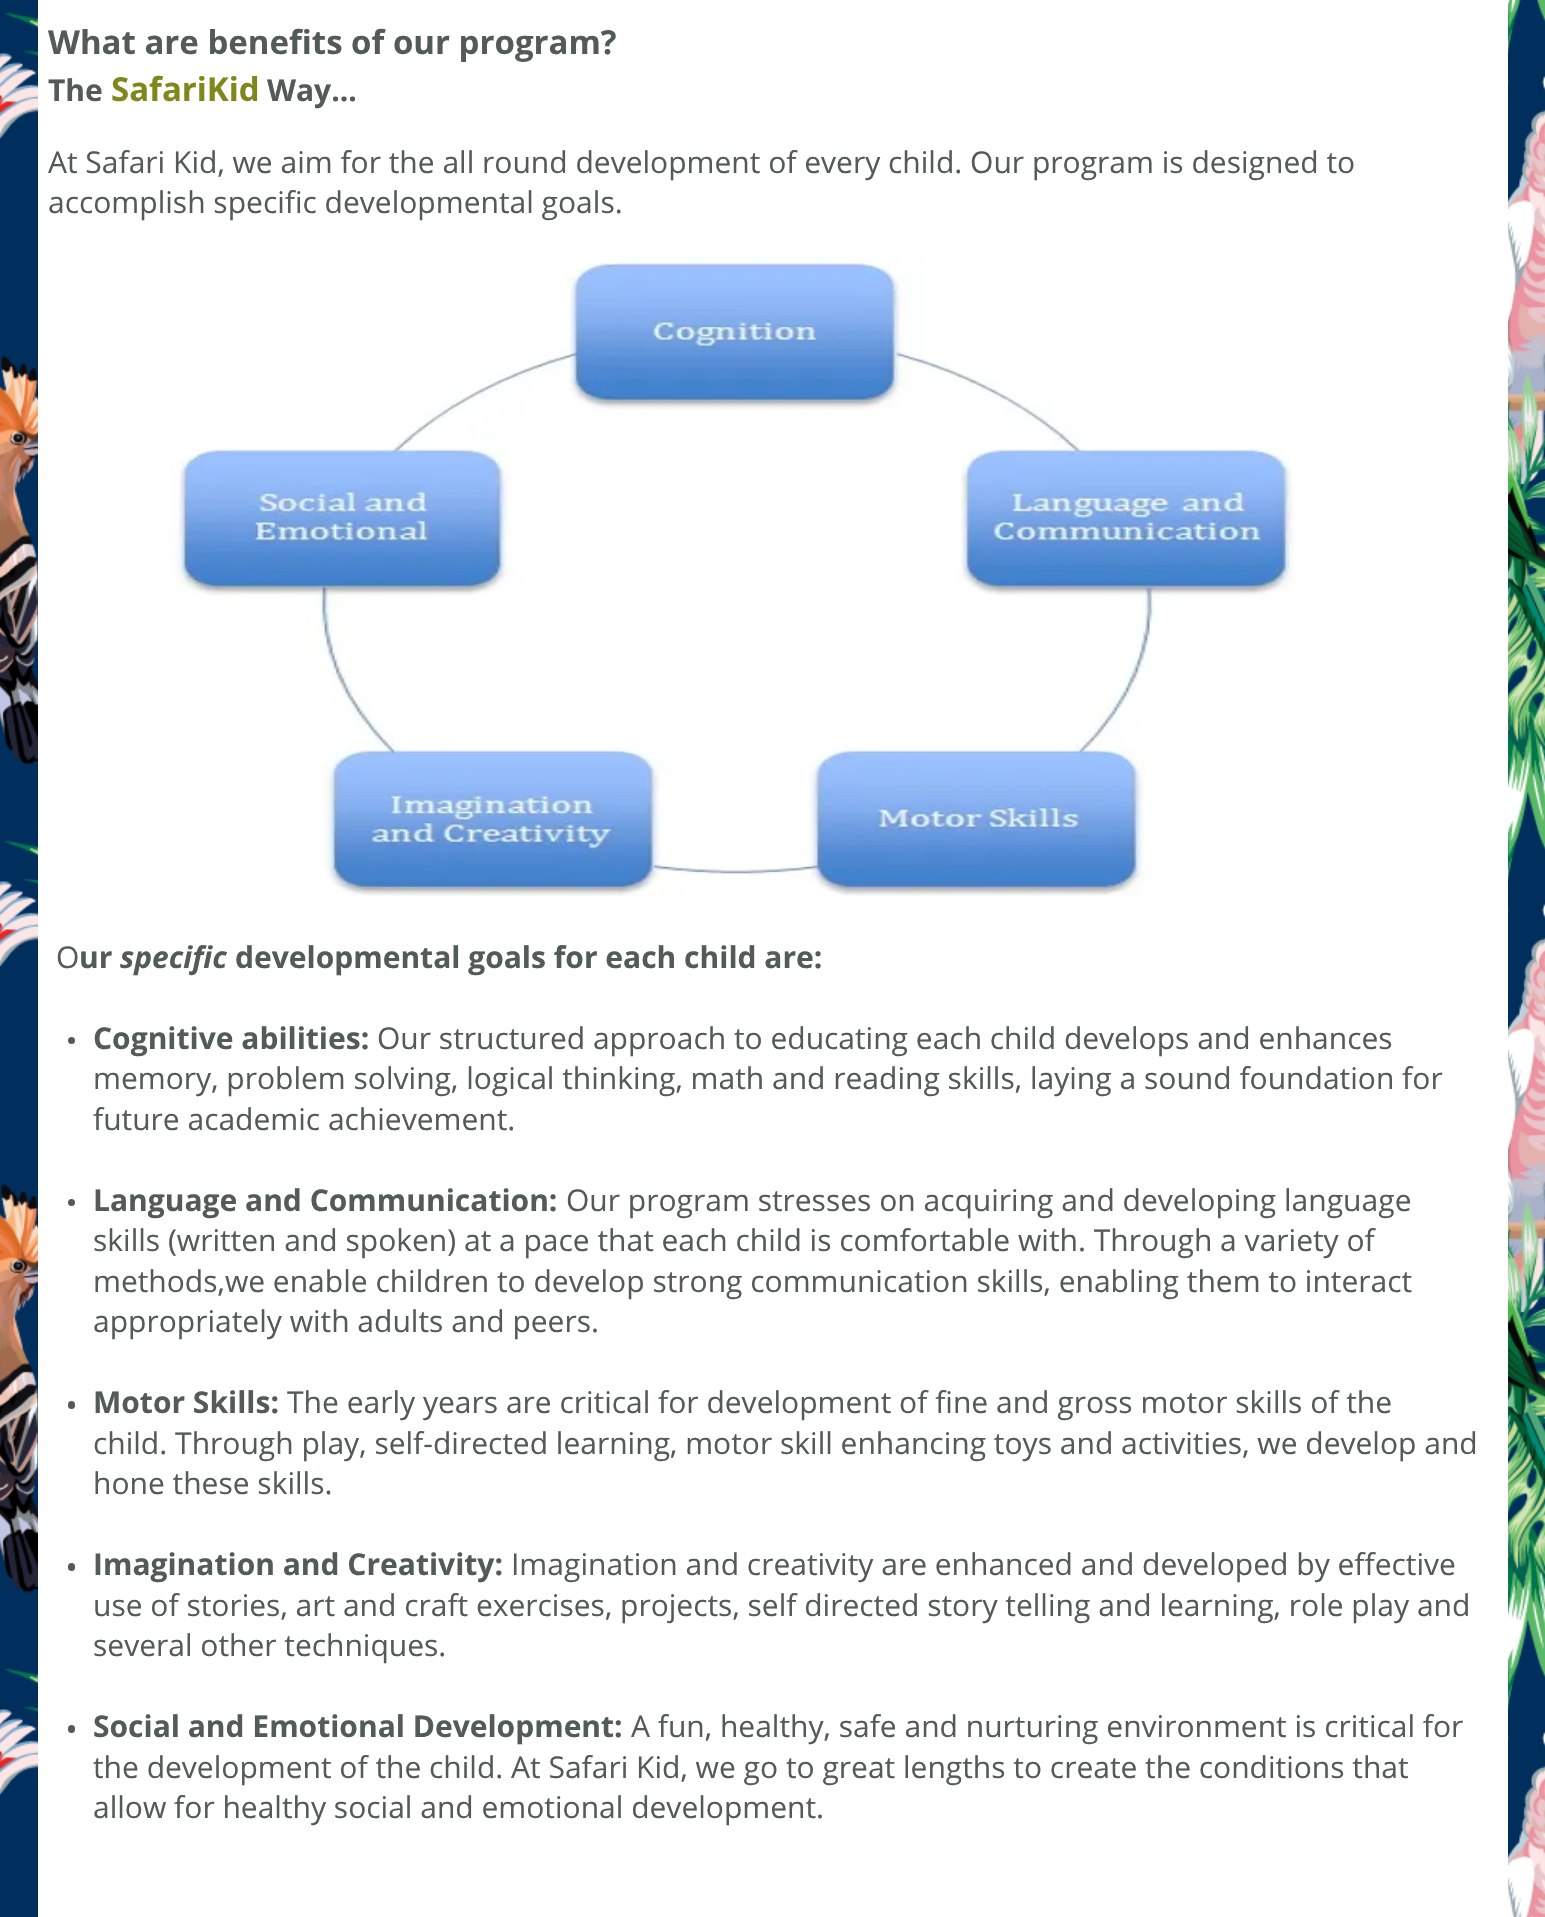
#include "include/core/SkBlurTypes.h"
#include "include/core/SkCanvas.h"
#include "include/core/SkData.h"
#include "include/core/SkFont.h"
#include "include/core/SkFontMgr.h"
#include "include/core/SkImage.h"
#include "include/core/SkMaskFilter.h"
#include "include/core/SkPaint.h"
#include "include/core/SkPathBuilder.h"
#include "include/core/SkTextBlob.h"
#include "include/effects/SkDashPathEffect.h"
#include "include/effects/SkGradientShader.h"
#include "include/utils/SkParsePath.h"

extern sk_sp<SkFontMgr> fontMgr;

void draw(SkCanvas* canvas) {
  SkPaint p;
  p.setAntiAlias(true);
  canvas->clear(SkColorSetRGB(0, 46, 93));
  canvas->drawImageRect(SkImages::DeferredFromEncodedData(SkData::MakeFromFileName("images/1.png")), SkRect::MakeLTRB(0, 0, 1545, 1917), SkSamplingOptions());
  p.setColor(SK_ColorWHITE);
  canvas->drawRect(SkRect::MakeLTRB(38, 0, 1508, 1917), p);
  canvas->drawImageRect(SkImages::DeferredFromEncodedData(SkData::MakeFromFileName("images/2.png")), SkRect::MakeLTRB(171, 255, 1296, 896), SkSamplingOptions());
  p.setColor(SkColorSetRGB(83, 91, 88));
  canvas->drawCircle(71.5f, 1040.5f, 3.5f, p);
  canvas->drawCircle(71.5f, 1202.5f, 3.5f, p);
  canvas->drawRoundRect(SkRect::MakeLTRB(68, 1401, 75, 1409), 3.5f, 3.5f, p);
  canvas->drawRoundRect(SkRect::MakeLTRB(68, 1563, 75, 1571), 3.5f, 3.5f, p);
  canvas->drawRoundRect(SkRect::MakeLTRB(68, 1725, 75, 1733), 3.5f, 3.5f, p);
  SkFont font1(fontMgr->matchFamilyStyle("Open Sans", SkFontStyle::Bold()), 33);
  font1.setSubpixel(true);
  canvas->drawString("What are benefits of our program?", 48, 54, font1, p);
  SkFont font2(fontMgr->matchFamilyStyle("Open Sans", SkFontStyle::Bold()), 30);
  font2.setSubpixel(true);
  canvas->drawString("The", 48, 101, font2, p);
  p.setColor(SkColorSetRGB(128, 135, 27));
  canvas->drawString("SafariKid", 111, 101, font1, p);
  p.setColor(SkColorSetRGB(83, 91, 88));
  canvas->drawString("Way...", 267, 101, font2, p);
  SkFont font3(fontMgr->matchFamilyStyle("Open Sans", SkFontStyle::Normal()), 30);
  font3.setSubpixel(true);
  canvas->drawString("At Safari Kid, we aim for the all round development of every child. Our program is designed to", 48, 173, font3, p);
  canvas->drawString("accomplish specific developmental goals.", 48, 213, font3, p);
  canvas->drawString("O", 56, 968, font3, p);
  canvas->drawString("ur", 79, 968, font2, p);
  SkFont font4(fontMgr->matchFamilyStyle("Open Sans", SkFontStyle::BoldItalic()), 30);
  font4.setSubpixel(true);
  canvas->drawString("specific", 120, 968, font4, p);
  canvas->drawString("developmental goals for each child are:", 235, 968, font2, p);
  canvas->drawString("Cognitive abilities:", 93, 1049, font2, p);
  canvas->drawString("Our structured approach to educating each child develops and enhances", 377, 1049, font3, p);
  canvas->drawString("memory, problem solving, logical thinking, math and reading skills, laying a sound foundation for", 93, 1089, font3, p);
  canvas->drawString("future academic achievement.", 93, 1130, font3, p);
  canvas->drawString("Language and Communication:", 93, 1211, font2, p);
  canvas->drawString("Our program stresses on acquiring and developing language", 566, 1211, font3, p);
  canvas->drawString("skills (written and spoken) at a pace that each child is comfortable with. Through a variety of", 93, 1251, font3, p);
  canvas->drawString("methods,we enable children to develop strong communication skills, enabling them to interact", 93, 1292, font3, p);
  canvas->drawString("appropriately with adults and peers.", 93, 1332, font3, p);
  canvas->drawString("Motor Skills:", 93, 1413, font2, p);
  canvas->drawString("The early years are critical for development of fine and gross motor skills of the", 287, 1413, font3, p);
  canvas->drawString("child. Through play, self-directed learning, motor skill enhancing toys and activities, we develop and", 93, 1454, font3, p);
  canvas->drawString("hone these skills.", 93, 1494, font3, p);
  canvas->drawString("Imagination and Creativity:", 93, 1575, font2, p);
  canvas->drawString("Imagination and creativity are enhanced and developed by effective", 511, 1575, font3, p);
  canvas->drawString("use of stories, art and craft exercises, projects, self directed story telling and learning, role play and", 93, 1616, font3, p);
  canvas->drawString("several other techniques.", 93, 1656, font3, p);
  canvas->drawString("Social and Emotional Development:", 93, 1737, font2, p);
  canvas->drawString("A fun, healthy, safe and nurturing environment is critical for", 631, 1737, font3, p);
  canvas->drawString("the development of the child. At Safari Kid, we go to great lengths to create the conditions that", 93, 1778, font3, p);
  canvas->drawString("allow for healthy social and emotional development.", 93, 1818, font3, p);
}
